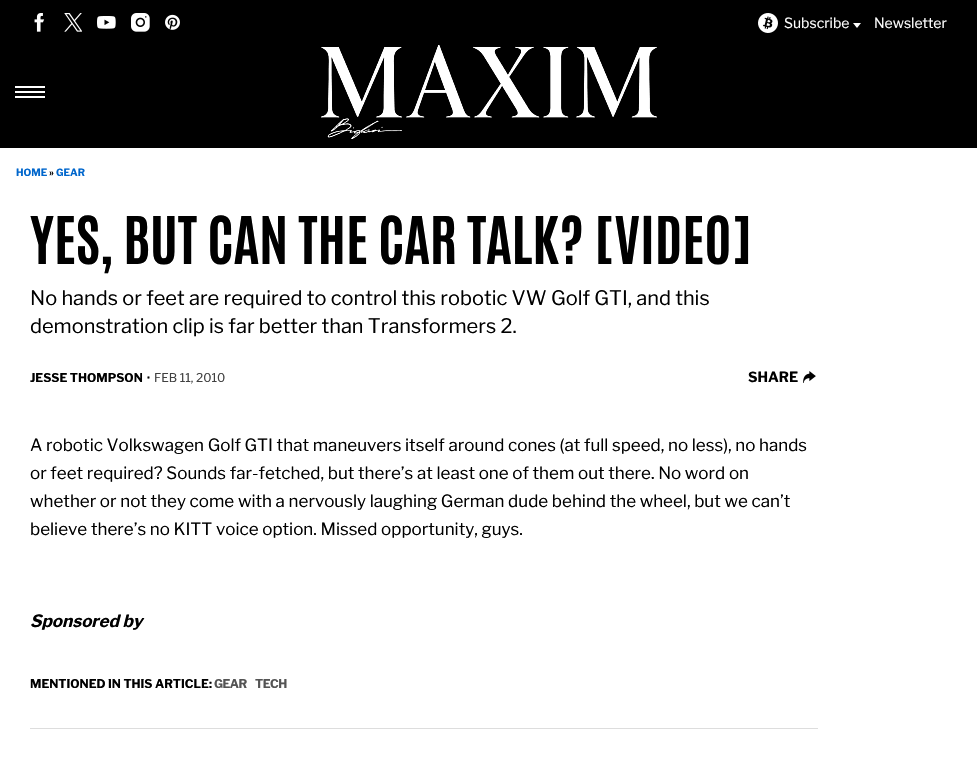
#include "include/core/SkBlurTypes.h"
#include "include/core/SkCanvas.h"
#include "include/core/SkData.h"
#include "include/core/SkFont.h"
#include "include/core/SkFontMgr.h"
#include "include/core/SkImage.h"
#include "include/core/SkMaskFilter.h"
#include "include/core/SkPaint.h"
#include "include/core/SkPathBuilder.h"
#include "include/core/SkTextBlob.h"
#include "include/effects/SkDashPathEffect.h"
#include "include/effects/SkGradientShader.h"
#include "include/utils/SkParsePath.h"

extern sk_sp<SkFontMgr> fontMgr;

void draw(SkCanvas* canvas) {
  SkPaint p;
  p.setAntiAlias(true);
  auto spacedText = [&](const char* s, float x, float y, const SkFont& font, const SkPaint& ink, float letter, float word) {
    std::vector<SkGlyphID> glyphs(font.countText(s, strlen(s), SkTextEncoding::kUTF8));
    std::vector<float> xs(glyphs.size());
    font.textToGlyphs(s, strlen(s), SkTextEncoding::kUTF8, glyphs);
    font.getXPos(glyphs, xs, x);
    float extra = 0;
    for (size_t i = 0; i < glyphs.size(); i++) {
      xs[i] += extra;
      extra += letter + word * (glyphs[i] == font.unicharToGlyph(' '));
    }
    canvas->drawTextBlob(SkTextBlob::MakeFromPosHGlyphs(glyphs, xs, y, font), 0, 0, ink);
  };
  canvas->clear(SK_ColorWHITE);
  p.setColor(SK_ColorBLACK);
  canvas->drawRect(SkRect::MakeLTRB(0, 0, 977, 148), p);
  canvas->drawImageRect(SkImages::DeferredFromEncodedData(SkData::MakeFromFileName("images/1.png")), SkRect::MakeLTRB(34, 13, 45, 32), SkSamplingOptions());
  canvas->drawImageRect(SkImages::DeferredFromEncodedData(SkData::MakeFromFileName("images/2.png")), SkRect::MakeLTRB(64, 13, 82, 32), SkSamplingOptions());
  canvas->drawImageRect(SkImages::DeferredFromEncodedData(SkData::MakeFromFileName("images/3.png")), SkRect::MakeLTRB(97, 16, 116, 29), SkSamplingOptions());
  canvas->drawImageRect(SkImages::DeferredFromEncodedData(SkData::MakeFromFileName("images/4.png")), SkRect::MakeLTRB(131, 13, 150, 32), SkSamplingOptions());
  canvas->drawImageRect(SkImages::DeferredFromEncodedData(SkData::MakeFromFileName("images/5.png")), SkRect::MakeLTRB(165, 14, 180, 30), SkSamplingOptions());
  canvas->drawImageRect(SkImages::DeferredFromEncodedData(SkData::MakeFromFileName("images/6.png")), SkRect::MakeLTRB(758, 13, 778, 33), SkSamplingOptions());
  p.setColor(SK_ColorWHITE);
  canvas->drawPath(SkPathBuilder().moveTo(853, 23).lineTo(861, 23).lineTo(857, 28).close().detach(), p);
  canvas->drawRect(SkRect::MakeLTRB(15, 86, 45, 88), p);
  canvas->drawRect(SkRect::MakeLTRB(15, 91, 45, 93), p);
  canvas->drawRect(SkRect::MakeLTRB(15, 96, 45, 98), p);
  canvas->drawImageRect(SkImages::DeferredFromEncodedData(SkData::MakeFromFileName("images/7.png")), SkRect::MakeLTRB(321, 45, 657, 139), SkSamplingOptions());
  canvas->drawImageRect(SkImages::DeferredFromEncodedData(SkData::MakeFromFileName("images/8.png")), SkRect::MakeLTRB(803, 371, 816, 383), SkSamplingOptions());
  p.setColor(SkColorSetRGB(221, 221, 221));
  canvas->drawRect(SkRect::MakeLTRB(30, 728, 818, 729), p);
  SkFont font1(fontMgr->matchFamilyStyle("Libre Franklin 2", SkFontStyle(100, SkFontStyle::kNormal_Width, SkFontStyle::kUpright_Slant)), 14);
  font1.setSubpixel(true);
  p.setColor(SK_ColorWHITE);
  canvas->drawString("Subscribe", 784, 28, font1, p);
  canvas->drawString("Newsletter", 874, 28, font1, p);
  SkFont font2(fontMgr->matchFamilyStyle("Libre Franklin", SkFontStyle(100, SkFontStyle::kNormal_Width, SkFontStyle::kUpright_Slant)), 10);
  font2.setSubpixel(true);
  p.setColor(SkColorSetRGB(0, 102, 204));
  canvas->drawString("HOME", 16, 176, font2, p);
  p.setColor(SK_ColorBLACK);
  canvas->drawString("»", 49, 176, font2, p);
  p.setColor(SkColorSetRGB(0, 102, 204));
  canvas->drawString("GEAR", 56, 176, font2, p);
  SkFont font3(fontMgr->matchFamilyStyle("Antonio", SkFontStyle::Bold()), 56);
  font3.setSubpixel(true);
  p.setColor(SK_ColorBLACK);
  canvas->drawString("YES, BUT CAN THE CAR TALK? [VIDEO]", 30, 264, font3, p);
  SkFont font4(fontMgr->matchFamilyStyle("Libre Franklin 2", SkFontStyle(100, SkFontStyle::kNormal_Width, SkFontStyle::kUpright_Slant)), 20);
  font4.setSubpixel(true);
  canvas->drawString("No hands or feet are required to control this robotic VW Golf GTI, and this", 30, 305, font4, p);
  canvas->drawString("demonstration clip is far better than Transformers 2.", 30, 333, font4, p);
  SkFont font5(fontMgr->matchFamilyStyle("Libre Franklin", SkFontStyle(100, SkFontStyle::kNormal_Width, SkFontStyle::kUpright_Slant)), 12);
  font5.setSubpixel(true);
  canvas->drawString("JESSE THOMPSON", 30, 382, font5, p);
  canvas->drawString("·", 147, 382, font5, p);
  SkFont font6(fontMgr->matchFamilyStyle("Libre Franklin 2", SkFontStyle(100, SkFontStyle::kNormal_Width, SkFontStyle::kUpright_Slant)), 12);
  font6.setSubpixel(true);
  p.setColor(SkColorSetRGB(64, 64, 64));
  canvas->drawString("FEB 11, 2010", 154, 382, font6, p);
  SkFont font7(fontMgr->matchFamilyStyle("Libre Franklin", SkFontStyle(100, SkFontStyle::kNormal_Width, SkFontStyle::kUpright_Slant)), 14);
  font7.setSubpixel(true);
  p.setColor(SK_ColorBLACK);
  canvas->drawString("SHARE", 748, 382, font7, p);
  SkFont font8(fontMgr->matchFamilyStyle("Libre Franklin 2", SkFontStyle(100, SkFontStyle::kNormal_Width, SkFontStyle::kUpright_Slant)), 17);
  font8.setSubpixel(true);
  canvas->drawString("A robotic Volkswagen Golf GTI that maneuvers itself around cones (at full speed, no less), no hands", 30, 451, font8, p);
  canvas->drawString("or feet required? Sounds far-fetched, but there’s at least one of them out there. No word on", 30, 479, font8, p);
  canvas->drawString("whether or not they come with a nervously laughing German dude behind the wheel, but we can’t", 30, 507, font8, p);
  canvas->drawString("believe there’s no KITT voice option. Missed opportunity, guys.", 30, 535, font8, p);
  SkFont font9(fontMgr->matchFamilyStyle("Libre Franklin", SkFontStyle(100, SkFontStyle::kNormal_Width, SkFontStyle::kItalic_Slant)), 17);
  font9.setSubpixel(true);
  canvas->drawString("Sponsored by", 30, 627, font9, p);
  canvas->drawString("MENTIONED IN THIS ARTICLE:", 30, 688, font5, p);
  p.setColor(SkColorSetRGB(84, 84, 84));
  spacedText("GEAR", 214, 688, font5, p, -0.5f, 0);
  spacedText("TECH", 255, 688, font5, p, -0.5f, 0);
}
